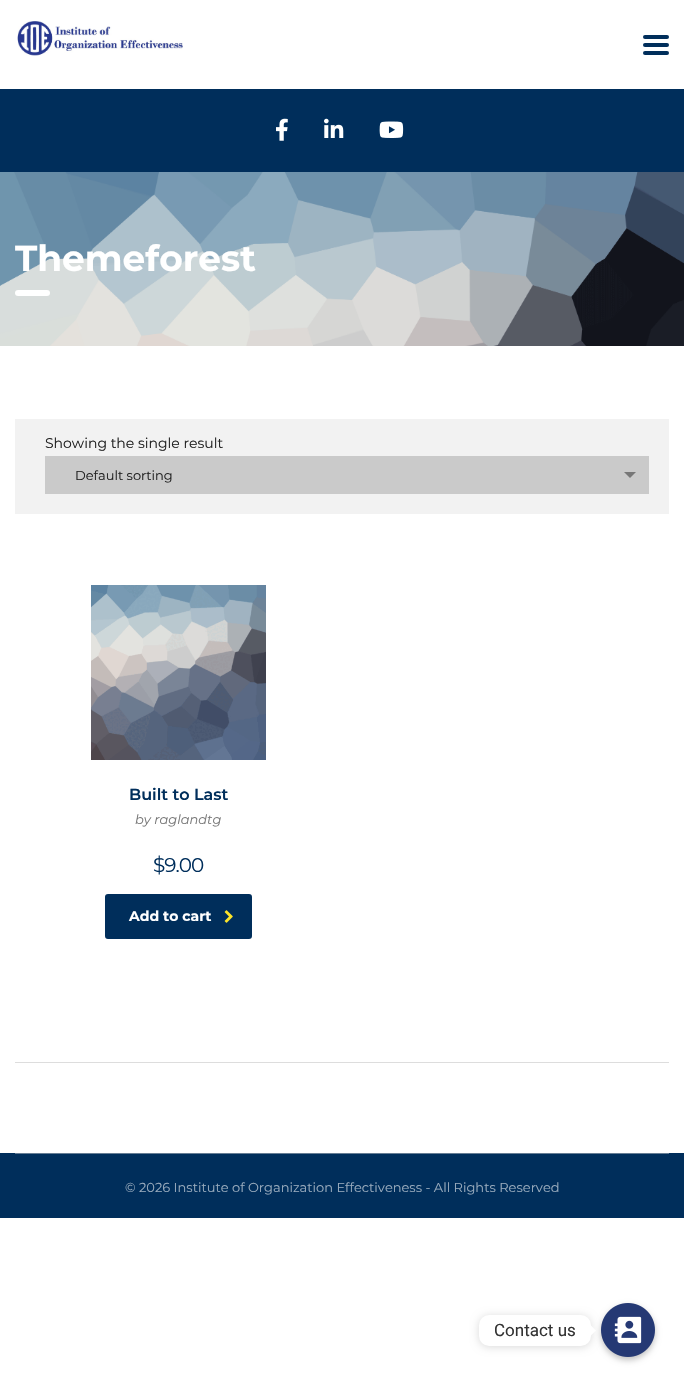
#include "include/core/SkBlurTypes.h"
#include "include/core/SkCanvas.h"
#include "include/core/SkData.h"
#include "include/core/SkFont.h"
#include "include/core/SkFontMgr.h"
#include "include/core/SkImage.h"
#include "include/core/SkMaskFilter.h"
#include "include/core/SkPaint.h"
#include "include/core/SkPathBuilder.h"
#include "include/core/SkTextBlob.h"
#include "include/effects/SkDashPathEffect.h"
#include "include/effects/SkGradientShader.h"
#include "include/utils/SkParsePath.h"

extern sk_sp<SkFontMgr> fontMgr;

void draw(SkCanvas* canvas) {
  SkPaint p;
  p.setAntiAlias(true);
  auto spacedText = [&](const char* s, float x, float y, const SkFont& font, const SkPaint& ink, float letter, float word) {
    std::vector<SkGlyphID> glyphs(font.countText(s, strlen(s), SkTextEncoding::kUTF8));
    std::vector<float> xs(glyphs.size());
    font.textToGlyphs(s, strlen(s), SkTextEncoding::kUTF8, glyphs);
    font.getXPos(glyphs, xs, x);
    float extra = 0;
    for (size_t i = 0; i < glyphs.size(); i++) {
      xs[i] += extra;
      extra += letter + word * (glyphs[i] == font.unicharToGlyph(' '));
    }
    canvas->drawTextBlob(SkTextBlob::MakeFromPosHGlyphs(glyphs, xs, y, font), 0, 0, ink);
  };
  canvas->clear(SK_ColorWHITE);
  p.setColor(SkColorSetRGB(0, 46, 91));
  canvas->drawRect(SkRect::MakeLTRB(0, 89, 684, 172), p);
  canvas->drawImageRect(SkImages::DeferredFromEncodedData(SkData::MakeFromFileName("images/1.png")), SkRect::MakeLTRB(17, 21, 183, 56), SkSamplingOptions());
  canvas->drawRoundRect(SkRect::MakeLTRB(643, 43, 669, 47), 2, 2, p);
  canvas->drawRoundRect(SkRect::MakeLTRB(643, 35, 669, 39), 2, 2, p);
  canvas->drawRoundRect(SkRect::MakeLTRB(643, 51, 669, 55), 2, 2, p);
  canvas->drawImageRect(SkImages::DeferredFromEncodedData(SkData::MakeFromFileName("images/2.png")), SkRect::MakeLTRB(276, 118, 288, 141), SkSamplingOptions());
  canvas->drawImageRect(SkImages::DeferredFromEncodedData(SkData::MakeFromFileName("images/3.png")), SkRect::MakeLTRB(324, 118, 344, 138), SkSamplingOptions());
  canvas->drawImageRect(SkImages::DeferredFromEncodedData(SkData::MakeFromFileName("images/4.png")), SkRect::MakeLTRB(379, 121, 404, 138), SkSamplingOptions());
  canvas->drawImageRect(SkImages::DeferredFromEncodedData(SkData::MakeFromFileName("images/5.png")), SkRect::MakeLTRB(0, 172, 684, 346), SkSamplingOptions());
  p.setColor(SK_ColorWHITE);
  canvas->drawRoundRect(SkRect::MakeLTRB(15, 290, 50, 296), 3, 3, p);
  p.setColor(SkColorSetRGB(242, 242, 242));
  canvas->drawRect(SkRect::MakeLTRB(15, 419, 669, 514), p);
  p.setColor(SkColorSetRGB(202, 202, 202));
  canvas->drawRect(SkRect::MakeLTRB(45, 456, 649, 494), p);
  p.setColor(SkColorSetRGB(119, 119, 119));
  canvas->drawPath(SkPathBuilder().moveTo(624, 472).lineTo(636, 472).lineTo(630, 478).close().detach(), p);
  p.setColor(SkColorSetRGB(221, 221, 221));
  canvas->drawRect(SkRect::MakeLTRB(15, 1062, 669, 1063), p);
  canvas->drawImageRect(SkImages::DeferredFromEncodedData(SkData::MakeFromFileName("images/6.png")), SkRect::MakeLTRB(91, 585, 266, 760), SkSamplingOptions());
  p.setColor(SkColorSetRGB(0, 46, 91));
  canvas->drawRoundRect(SkRect::MakeLTRB(106.5f, 895.5f, 250.5f, 937.5f), 1.5f, 1.5f, p);
  p.setStyle(SkPaint::kStroke_Style);
  p.setStrokeWidth(3);
  canvas->drawRoundRect(SkRect::MakeLTRB(106.5f, 895.5f, 250.5f, 937.5f), 1.5f, 1.5f, p);
  canvas->drawImageRect(SkImages::DeferredFromEncodedData(SkData::MakeFromFileName("images/7.png")), SkRect::MakeLTRB(224, 910, 233, 923), SkSamplingOptions());
  p.setStyle(SkPaint::kFill_Style);
  canvas->drawRect(SkRect::MakeLTRB(0, 1153, 684, 1218), p);
  p.setColor(SkColorSetRGB(102, 125, 148));
  canvas->drawRect(SkRect::MakeLTRB(15, 1153, 669, 1154), p);
  p.setColor(SkColorSetARGB(64, 0, 0, 0));
  p.setMaskFilter(SkMaskFilter::MakeBlur(kNormal_SkBlurStyle, 3));
  canvas->drawRoundRect(SkRect::MakeLTRB(601, 1306, 655, 1360), 27, 27, p);
  p.setMaskFilter(nullptr);
  canvas->drawImageRect(SkImages::DeferredFromEncodedData(SkData::MakeFromFileName("images/8.png")), SkRect::MakeLTRB(601, 1303, 655, 1357), SkSamplingOptions());
  p.setColor(SkColorSetARGB(38, 0, 0, 0));
  p.setMaskFilter(SkMaskFilter::MakeBlur(kNormal_SkBlurStyle, 4));
  canvas->drawRoundRect(SkRect::MakeLTRB(479, 1316, 591, 1347), 10, 10, p);
  p.setMaskFilter(nullptr);
  p.setColor(SK_ColorWHITE);
  canvas->drawRoundRect(SkRect::MakeLTRB(479, 1315, 591, 1346), 10, 10, p);
  canvas->drawPath(SkPathBuilder().moveTo(591, 1335.5f).lineTo(591, 1325.5f).lineTo(596, 1330.5f).close().detach(), p);
  SkFont font1(fontMgr->matchFamilyStyle("Montserrat", SkFontStyle::Bold()), 36);
  font1.setSubpixel(true);
  canvas->drawString("Themeforest", 15, 271, font1, p);
  SkFont font2(fontMgr->matchFamilyStyle("Montserrat", SkFontStyle::Normal()), 14);
  font2.setSubpixel(true);
  p.setColor(SkColorSetRGB(34, 34, 34));
  canvas->drawString("Showing the single result", 45, 448, font2, p);
  SkFont font3(fontMgr->matchFamilyStyle("Montserrat", SkFontStyle::Normal()), 13);
  font3.setSubpixel(true);
  canvas->drawString("Default sorting", 75, 480, font3, p);
  SkFont font4(fontMgr->matchFamilyStyle("Montserrat", SkFontStyle(600, SkFontStyle::kNormal_Width, SkFontStyle::kUpright_Slant)), 16);
  font4.setSubpixel(true);
  p.setColor(SkColorSetRGB(0, 46, 91));
  canvas->drawString("Built to Last", 129, 800, font4, p);
  SkFont font5(fontMgr->matchFamilyStyle("Montserrat", SkFontStyle::Italic()), 13);
  font5.setSubpixel(true);
  p.setColor(SkColorSetRGB(119, 119, 119));
  canvas->drawString("by raglandtg", 135, 824, font5, p);
  SkFont font6(fontMgr->matchFamilyStyle("Montserrat", SkFontStyle::Normal()), 20);
  font6.setSubpixel(true);
  p.setColor(SkColorSetRGB(0, 46, 91));
  spacedText("$9.00", 153, 872, font6, p, -1, 0);
  SkFont font7(fontMgr->matchFamilyStyle("Montserrat", SkFontStyle::Bold()), 14);
  font7.setSubpixel(true);
  p.setColor(SK_ColorWHITE);
  canvas->drawString("Add to cart", 129, 921, font7, p);
  p.setColor(SkColorSetRGB(153, 171, 189));
  canvas->drawString("© 2026 Institute of Organization Effectiveness - All Rights Reserved", 125, 1192, font3, p);
  SkFont font8(fontMgr->matchFamilyStyle("Roboto", SkFontStyle::Normal()), 17);
  font8.setSubpixel(true);
  p.setColor(SkColorSetRGB(51, 51, 51));
  canvas->drawString("Contact us", 494, 1336, font8, p);
}
